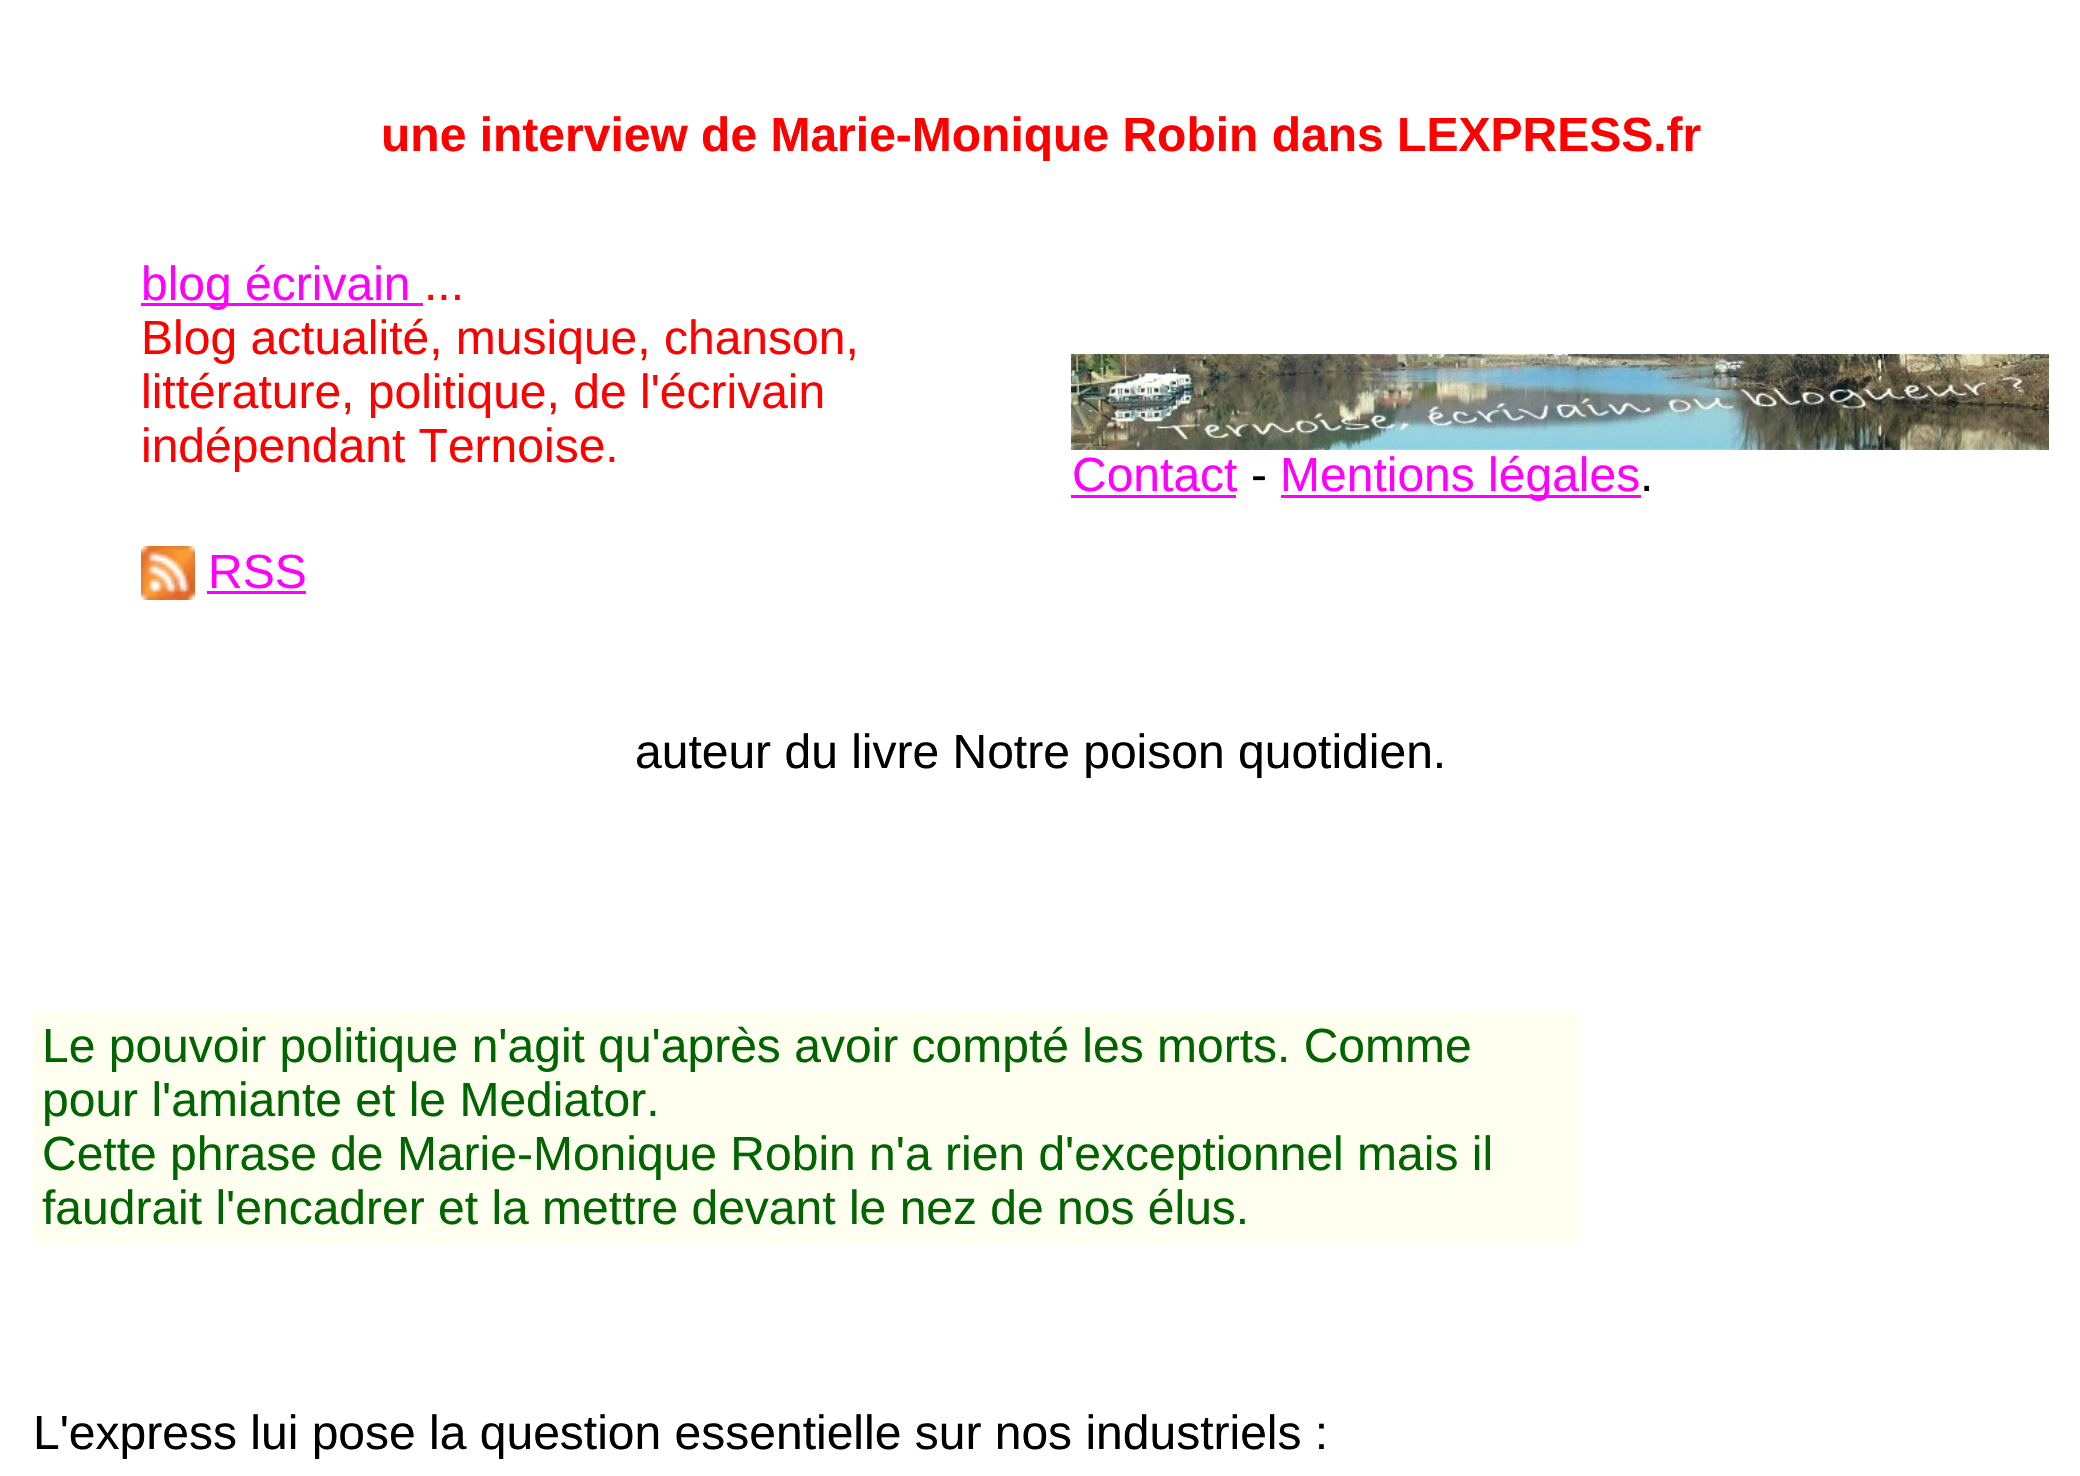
#include "include/core/SkBlurTypes.h"
#include "include/core/SkCanvas.h"
#include "include/core/SkData.h"
#include "include/core/SkFont.h"
#include "include/core/SkFontMgr.h"
#include "include/core/SkImage.h"
#include "include/core/SkMaskFilter.h"
#include "include/core/SkPaint.h"
#include "include/core/SkPathBuilder.h"
#include "include/core/SkTextBlob.h"
#include "include/effects/SkDashPathEffect.h"
#include "include/effects/SkGradientShader.h"
#include "include/utils/SkParsePath.h"

extern sk_sp<SkFontMgr> fontMgr;

void draw(SkCanvas* canvas) {
  SkPaint p;
  p.setAntiAlias(true);
  canvas->clear(SK_ColorWHITE);
  p.setColor(SkColorSetRGB(255, 0, 255));
  canvas->drawRect(SkRect::MakeLTRB(141, 303, 423, 306), p);
  canvas->drawImageRect(SkImages::DeferredFromEncodedData(SkData::MakeFromFileName("images/1.png")), SkRect::MakeLTRB(141, 546, 195, 600), SkSamplingOptions());
  canvas->drawRect(SkRect::MakeLTRB(207, 591, 306, 594), p);
  canvas->drawImageRect(SkImages::DeferredFromEncodedData(SkData::MakeFromFileName("images/2.png")), SkRect::MakeLTRB(1071, 354, 2049, 450), SkSamplingOptions());
  canvas->drawRect(SkRect::MakeLTRB(1071, 495, 1236, 498), p);
  canvas->drawRect(SkRect::MakeLTRB(1281, 495, 1641, 498), p);
  p.setColor(SkColorSetRGB(255, 255, 240));
  canvas->drawRect(SkRect::MakeLTRB(33, 1011, 1578, 1245), p);
  SkFont font1(fontMgr->matchFamilyStyle("Liberation Sans", SkFontStyle::Bold()), 48);
  font1.setSubpixel(true);
  p.setColor(SkColorSetRGB(255, 0, 0));
  canvas->drawString("une interview de Marie-Monique Robin dans LEXPRESS.fr", 381, 151, font1, p);
  SkFont font2(fontMgr->matchFamilyStyle("Liberation Sans", SkFontStyle::Normal()), 48);
  font2.setSubpixel(true);
  p.setColor(SkColorSetRGB(255, 0, 255));
  canvas->drawString("blog écrivain", 141, 300, font2, p);
  p.setColor(SkColorSetRGB(255, 0, 0));
  canvas->drawString("...", 424, 300, font2, p);
  canvas->drawString("Blog actualité, musique, chanson,", 141, 354, font2, p);
  canvas->drawString("littérature, politique, de l'écrivain", 141, 408, font2, p);
  canvas->drawString("indépendant Ternoise.", 141, 462, font2, p);
  p.setColor(SkColorSetRGB(255, 0, 255));
  canvas->drawString("RSS", 208, 588, font2, p);
  canvas->drawString("Contact", 1072, 491, font2, p);
  p.setColor(SK_ColorBLACK);
  canvas->drawString("-", 1251, 491, font2, p);
  p.setColor(SkColorSetRGB(255, 0, 255));
  canvas->drawString("Mentions légales", 1280, 491, font2, p);
  p.setColor(SK_ColorBLACK);
  canvas->drawString(".", 1640, 491, font2, p);
  canvas->drawString("auteur du livre Notre poison quotidien.", 635, 768, font2, p);
  p.setColor(SkColorSetRGB(0, 100, 0));
  canvas->drawString("Le pouvoir politique n'agit qu'après avoir compté les morts. Comme", 42, 1062, font2, p);
  canvas->drawString("pour l'amiante et le Mediator.", 42, 1116, font2, p);
  canvas->drawString("Cette phrase de Marie-Monique Robin n'a rien d'exceptionnel mais il", 42, 1170, font2, p);
  canvas->drawString("faudrait l'encadrer et la mettre devant le nez de nos élus.", 42, 1224, font2, p);
  p.setColor(SK_ColorBLACK);
  canvas->drawString("L'express lui pose la question essentielle sur nos industriels :", 33, 1449, font2, p);
}
